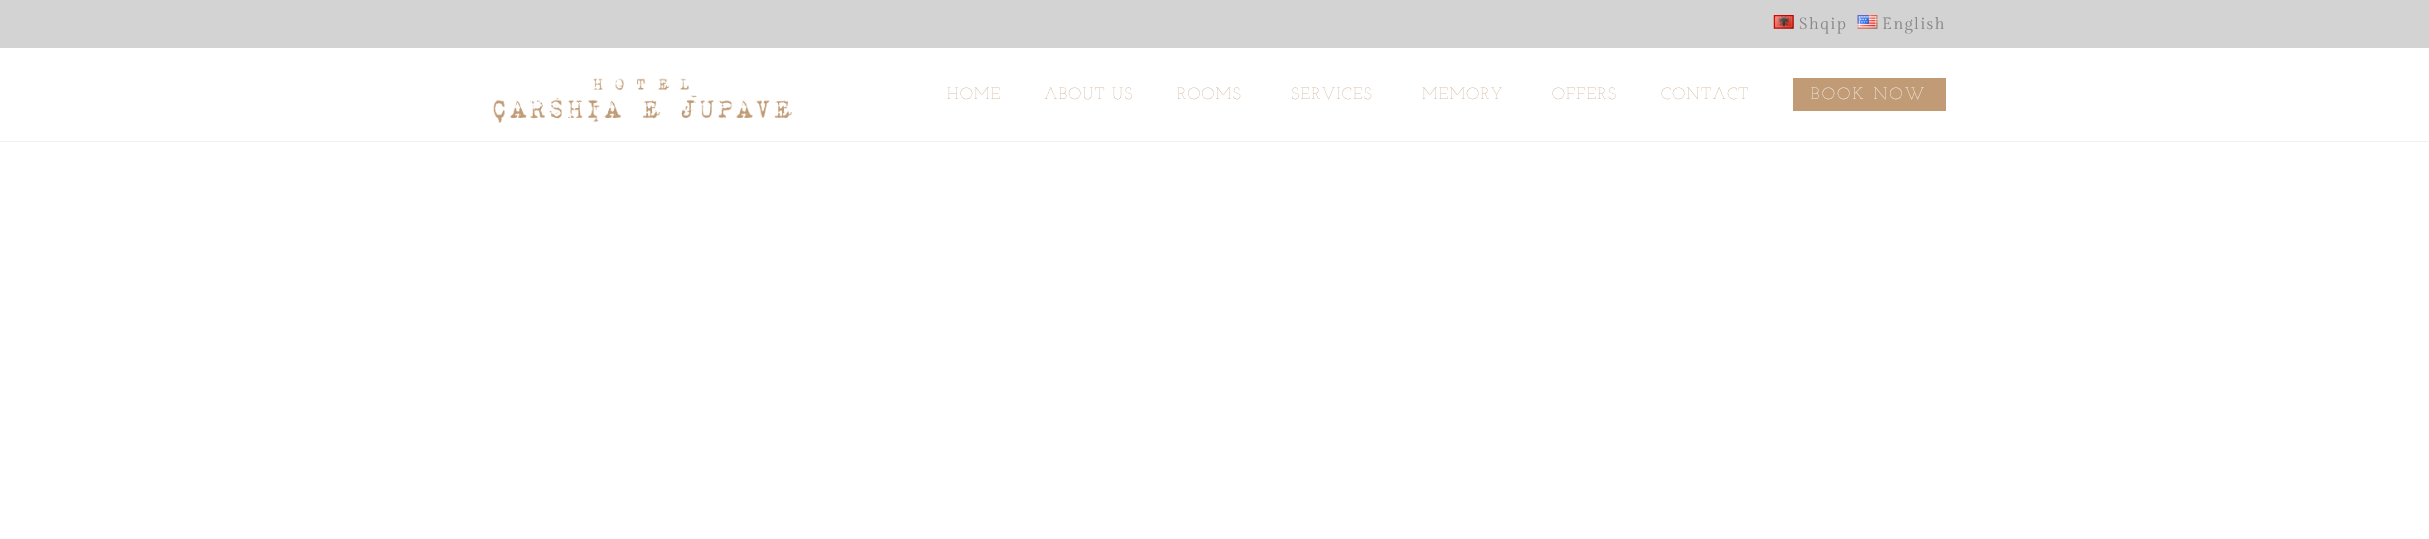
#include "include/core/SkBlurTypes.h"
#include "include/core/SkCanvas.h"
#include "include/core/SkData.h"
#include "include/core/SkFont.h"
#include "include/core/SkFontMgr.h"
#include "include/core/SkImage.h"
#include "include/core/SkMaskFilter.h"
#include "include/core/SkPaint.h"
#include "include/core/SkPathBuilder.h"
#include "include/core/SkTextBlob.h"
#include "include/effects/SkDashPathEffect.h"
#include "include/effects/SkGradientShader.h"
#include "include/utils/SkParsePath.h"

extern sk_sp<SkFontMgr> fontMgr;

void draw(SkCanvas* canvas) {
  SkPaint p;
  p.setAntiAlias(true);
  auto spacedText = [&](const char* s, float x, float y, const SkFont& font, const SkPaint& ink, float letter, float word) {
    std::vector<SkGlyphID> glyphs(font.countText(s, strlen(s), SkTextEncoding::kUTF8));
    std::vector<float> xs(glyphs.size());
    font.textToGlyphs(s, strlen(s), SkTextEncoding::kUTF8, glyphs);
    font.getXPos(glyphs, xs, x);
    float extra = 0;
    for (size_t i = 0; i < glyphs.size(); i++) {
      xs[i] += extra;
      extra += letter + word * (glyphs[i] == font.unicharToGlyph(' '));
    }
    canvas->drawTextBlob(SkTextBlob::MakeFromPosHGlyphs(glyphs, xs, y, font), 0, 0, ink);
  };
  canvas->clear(SK_ColorWHITE);
  p.setColor(SkColorSetRGB(211, 211, 211));
  canvas->drawRect(SkRect::MakeLTRB(0, 0, 2429, 48), p);
  canvas->drawImageRect(SkImages::DeferredFromEncodedData(SkData::MakeFromFileName("images/1.png")), SkRect::MakeLTRB(1773, 15, 1794, 29), SkSamplingOptions());
  canvas->drawImageRect(SkImages::DeferredFromEncodedData(SkData::MakeFromFileName("images/2.png")), SkRect::MakeLTRB(1857, 15, 1878, 29), SkSamplingOptions());
  p.setColor(SkColorSetRGB(241, 241, 241));
  canvas->drawRect(SkRect::MakeLTRB(0, 141, 2429, 142), p);
  canvas->drawImageRect(SkImages::DeferredFromEncodedData(SkData::MakeFromFileName("images/3.png")), SkRect::MakeLTRB(493, 78, 793, 123), SkSamplingOptions());
  p.setColor(SkColorSetRGB(193, 155, 118));
  canvas->drawRect(SkRect::MakeLTRB(1793, 78, 1946, 111), p);
  SkFont font1(fontMgr->matchFamilyStyle("Gilda Display", SkFontStyle::Normal()), 16.25f);
  font1.setSubpixel(true);
  p.setColor(SkColorSetRGB(135, 135, 135));
  spacedText("Shqip", 1799, 29, font1, p, 1.25f, 0);
  spacedText("English", 1882, 29, font1, p, 1.25f, 0);
  SkFont font2(fontMgr->matchFamilyStyle("Josefin Slab", SkFontStyle(100, SkFontStyle::kNormal_Width, SkFontStyle::kUpright_Slant)), 16.25f);
  font2.setSubpixel(true);
  p.setColor(SkColorSetRGB(193, 155, 118));
  spacedText("HOME", 947, 99, font2, p, 1.25f, 0);
  spacedText("ABOUT US", 1044, 99, font2, p, 1.25f, 0);
  spacedText("ROOMS", 1177, 99, font2, p, 1.25f, 0);
  spacedText("SERVICES", 1291, 99, font2, p, 1.25f, 0);
  spacedText("MEMORY", 1422, 99, font2, p, 1.25f, 0);
  spacedText("OFFERS", 1552, 99, font2, p, 1.25f, 0);
  spacedText("CONTACT", 1661, 99, font2, p, 1.25f, 0);
  p.setColor(SK_ColorWHITE);
  spacedText("BOOK NOW", 1811, 99, font2, p, 2.5f, 0);
}
